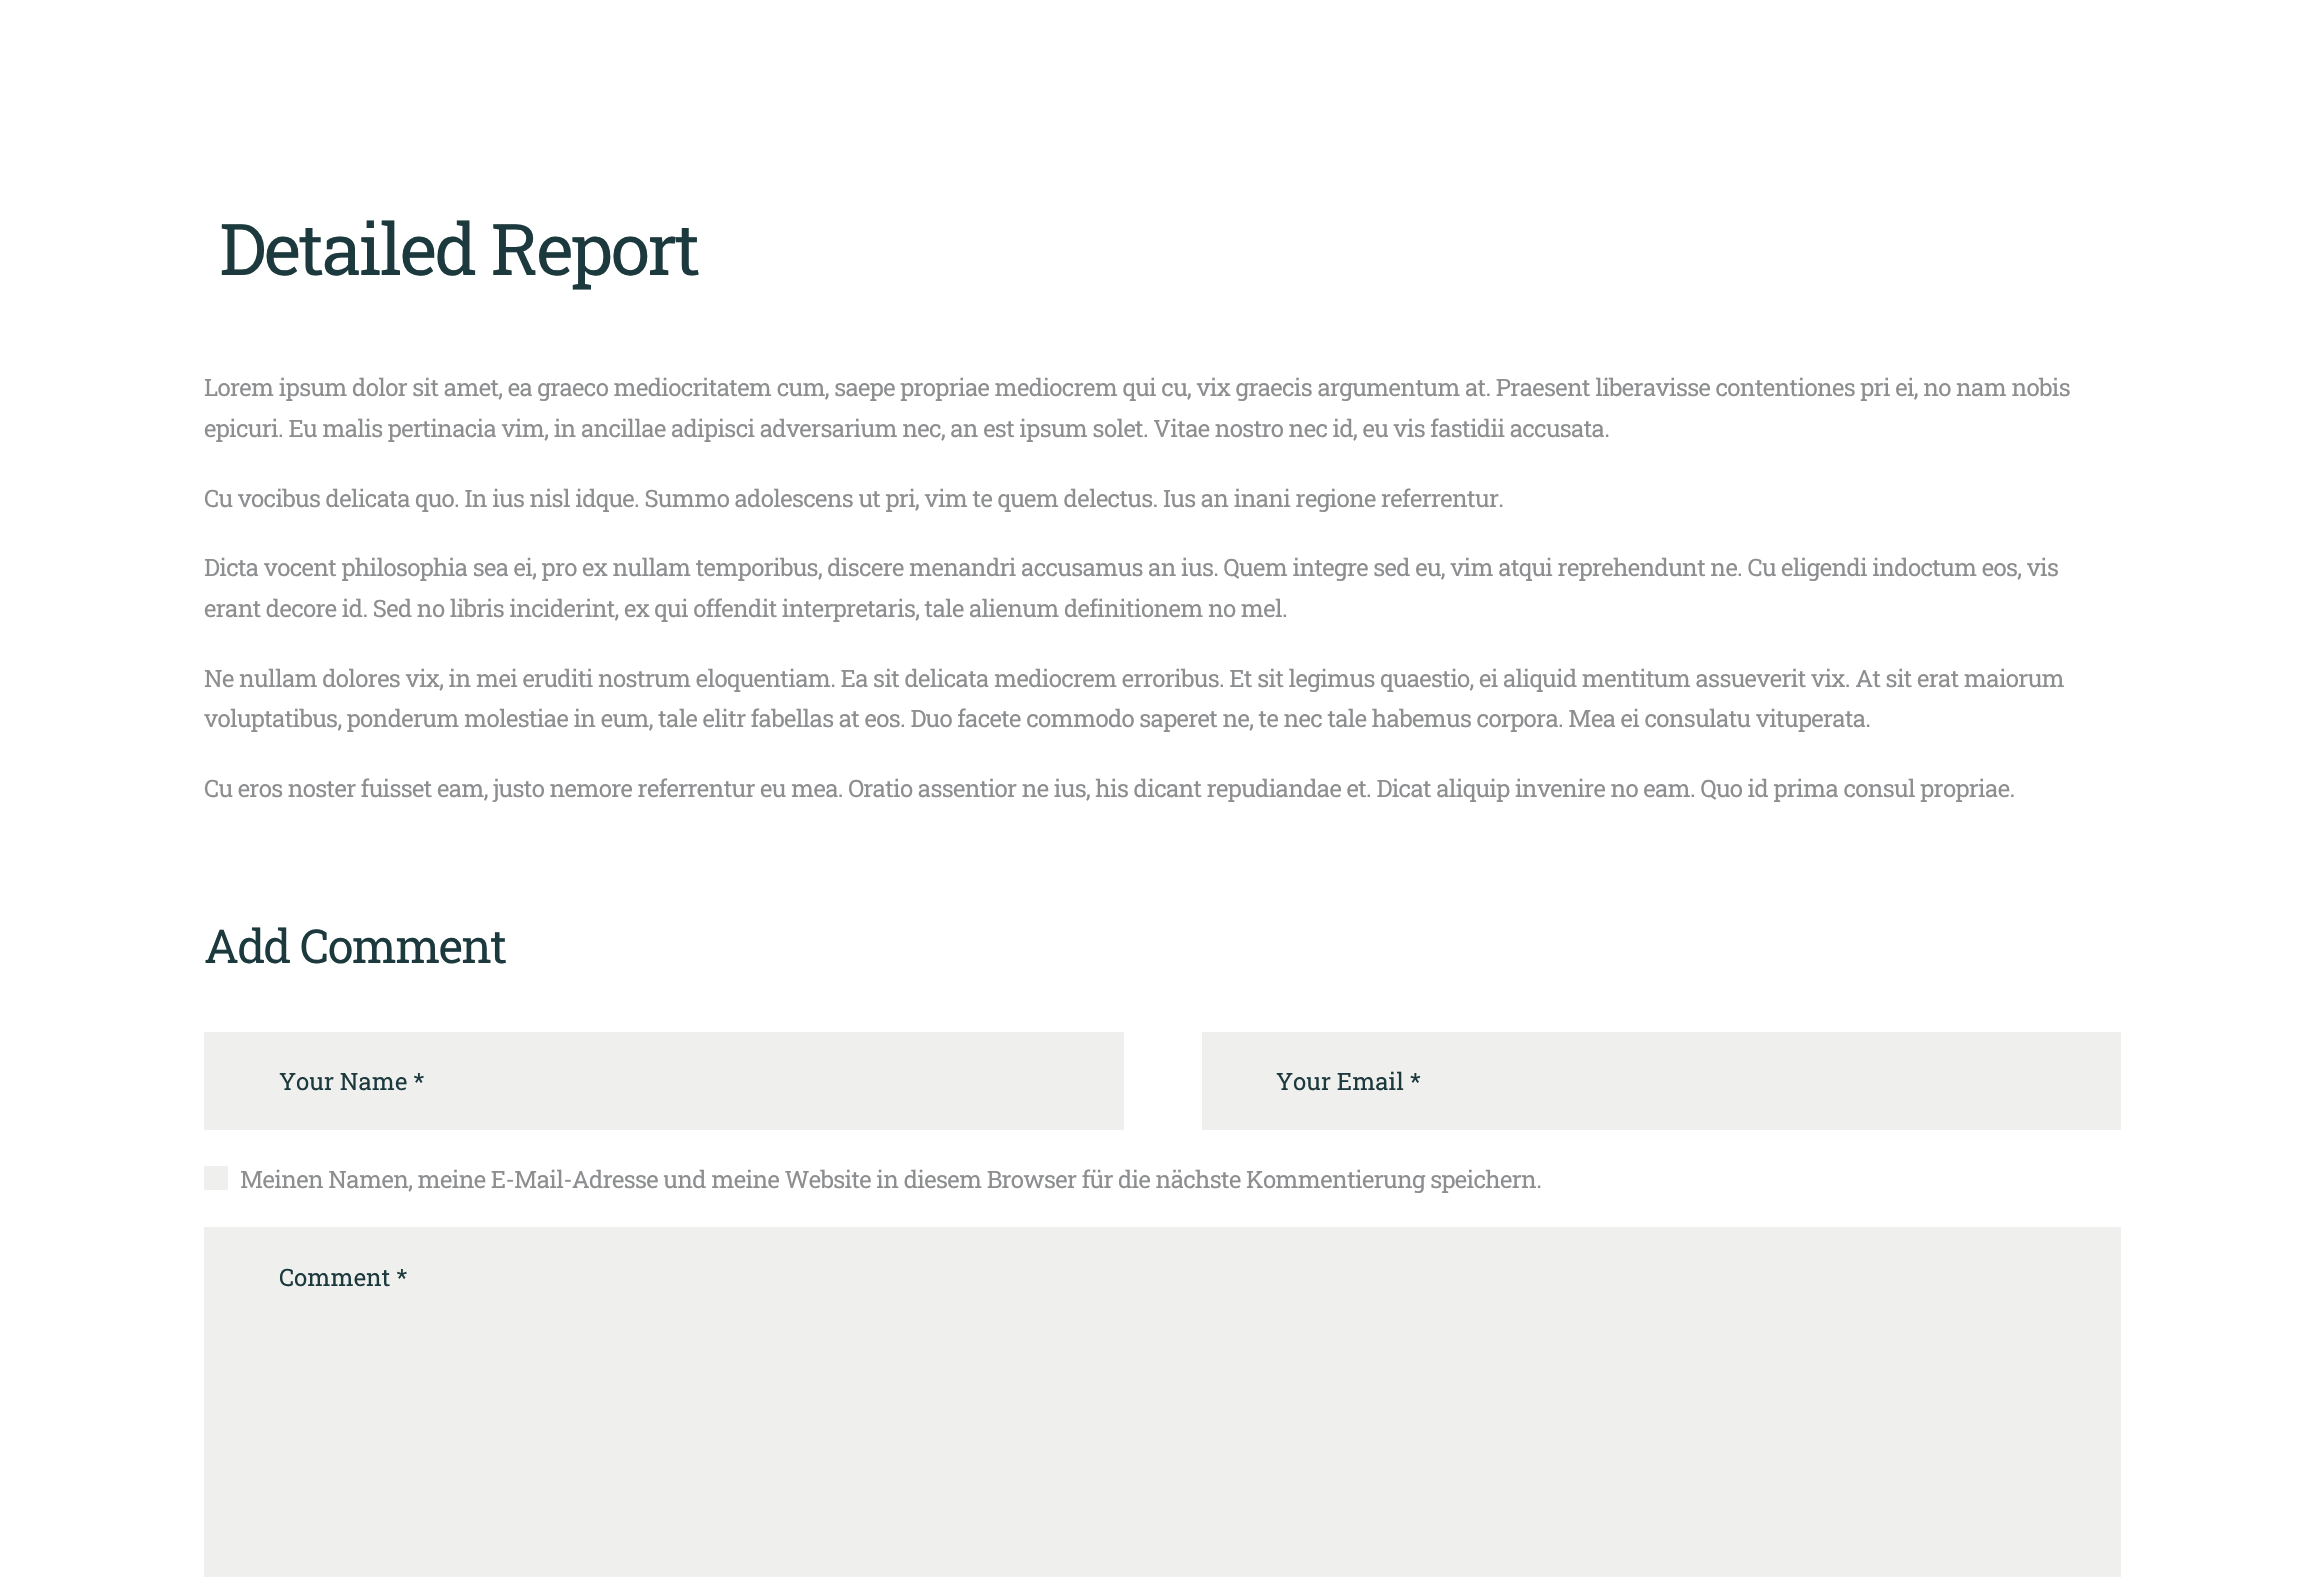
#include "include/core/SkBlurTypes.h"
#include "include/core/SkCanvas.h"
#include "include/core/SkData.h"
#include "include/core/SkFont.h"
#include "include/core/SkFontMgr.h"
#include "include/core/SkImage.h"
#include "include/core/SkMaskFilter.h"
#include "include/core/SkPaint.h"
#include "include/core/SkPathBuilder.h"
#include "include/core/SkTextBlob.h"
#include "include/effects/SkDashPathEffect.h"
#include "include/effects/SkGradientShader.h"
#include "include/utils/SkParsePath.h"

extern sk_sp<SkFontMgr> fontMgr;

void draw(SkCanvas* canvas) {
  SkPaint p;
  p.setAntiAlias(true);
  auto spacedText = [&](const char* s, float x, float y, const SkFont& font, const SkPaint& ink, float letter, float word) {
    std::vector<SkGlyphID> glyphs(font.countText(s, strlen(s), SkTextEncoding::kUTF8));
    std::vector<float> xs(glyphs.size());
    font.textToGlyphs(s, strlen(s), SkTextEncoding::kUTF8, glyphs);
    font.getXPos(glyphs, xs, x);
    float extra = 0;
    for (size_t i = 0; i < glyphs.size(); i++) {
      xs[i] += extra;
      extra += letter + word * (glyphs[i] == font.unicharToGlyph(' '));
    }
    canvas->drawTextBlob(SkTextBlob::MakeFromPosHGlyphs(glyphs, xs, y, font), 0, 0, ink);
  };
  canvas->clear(SK_ColorWHITE);
  p.setColor(SkColorSetRGB(239, 239, 238));
  canvas->drawRect(SkRect::MakeLTRB(204, 1032, 1124, 1130), p);
  canvas->drawRect(SkRect::MakeLTRB(1202, 1032, 2121, 1130), p);
  canvas->drawRect(SkRect::MakeLTRB(204, 1166, 228, 1190), p);
  canvas->drawRect(SkRect::MakeLTRB(204, 1227, 2121, 1577), p);
  SkFont font1(fontMgr->matchFamilyStyle("Roboto Slab", SkFontStyle::Normal()), 71.5f);
  font1.setSubpixel(true);
  p.setColor(SkColorSetRGB(28, 57, 61));
  spacedText("Detailed Report", 219, 275, font1, p, -2.3f, 0);
  SkFont font2(fontMgr->matchFamilyStyle("Roboto Slab", SkFontStyle::Normal()), 24);
  font2.setSubpixel(true);
  p.setColor(SkColorSetRGB(141, 142, 144));
  spacedText("Lorem ipsum dolor sit amet, ea graeco mediocritatem cum, saepe propriae mediocrem qui cu, vix graecis argumentum at. Praesent liberavisse contentiones pri ei, no nam nobis", 204, 396, font2, p, -0.68f, 0);
  spacedText("epicuri. Eu malis pertinacia vim, in ancillae adipisci adversarium nec, an est ipsum solet. Vitae nostro nec id, eu vis fastidii accusata.", 204, 437, font2, p, -0.68f, 0);
  spacedText("Cu vocibus delicata quo. In ius nisl idque. Summo adolescens ut pri, vim te quem delectus. Ius an inani regione referrentur.", 204, 507, font2, p, -0.68f, 0);
  spacedText("Dicta vocent philosophia sea ei, pro ex nullam temporibus, discere menandri accusamus an ius. Quem integre sed eu, vim atqui reprehendunt ne. Cu eligendi indoctum eos, vis", 204, 576, font2, p, -0.68f, 0);
  spacedText("erant decore id. Sed no libris inciderint, ex qui offendit interpretaris, tale alienum definitionem no mel.", 204, 617, font2, p, -0.68f, 0);
  spacedText("Ne nullam dolores vix, in mei eruditi nostrum eloquentiam. Ea sit delicata mediocrem erroribus. Et sit legimus quaestio, ei aliquid mentitum assueverit vix. At sit erat maiorum", 204, 687, font2, p, -0.68f, 0);
  spacedText("voluptatibus, ponderum molestiae in eum, tale elitr fabellas at eos. Duo facete commodo saperet ne, te nec tale habemus corpora. Mea ei consulatu vituperata.", 204, 727, font2, p, -0.68f, 0);
  spacedText("Cu eros noster fuisset eam, justo nemore referrentur eu mea. Oratio assentior ne ius, his dicant repudiandae et. Dicat aliquip invenire no eam. Quo id prima consul propriae.", 204, 797, font2, p, -0.68f, 0);
  SkFont font3(fontMgr->matchFamilyStyle("Roboto Slab", SkFontStyle::Normal()), 46.75f);
  font3.setSubpixel(true);
  p.setColor(SkColorSetRGB(28, 57, 61));
  spacedText("Add Comment", 204, 963, font3, p, -1.6f, 0);
  canvas->drawString("Your Name *", 279, 1090, font2, p);
  canvas->drawString("Your Email *", 1276, 1090, font2, p);
  p.setColor(SkColorSetRGB(141, 142, 144));
  spacedText("Meinen Namen, meine E-Mail-Adresse und meine Website in diesem Browser für die nächste Kommentierung speichern.", 240, 1188, font2, p, -0.68f, 0);
  p.setColor(SkColorSetRGB(28, 57, 61));
  canvas->drawString("Comment *", 279, 1286, font2, p);
}
